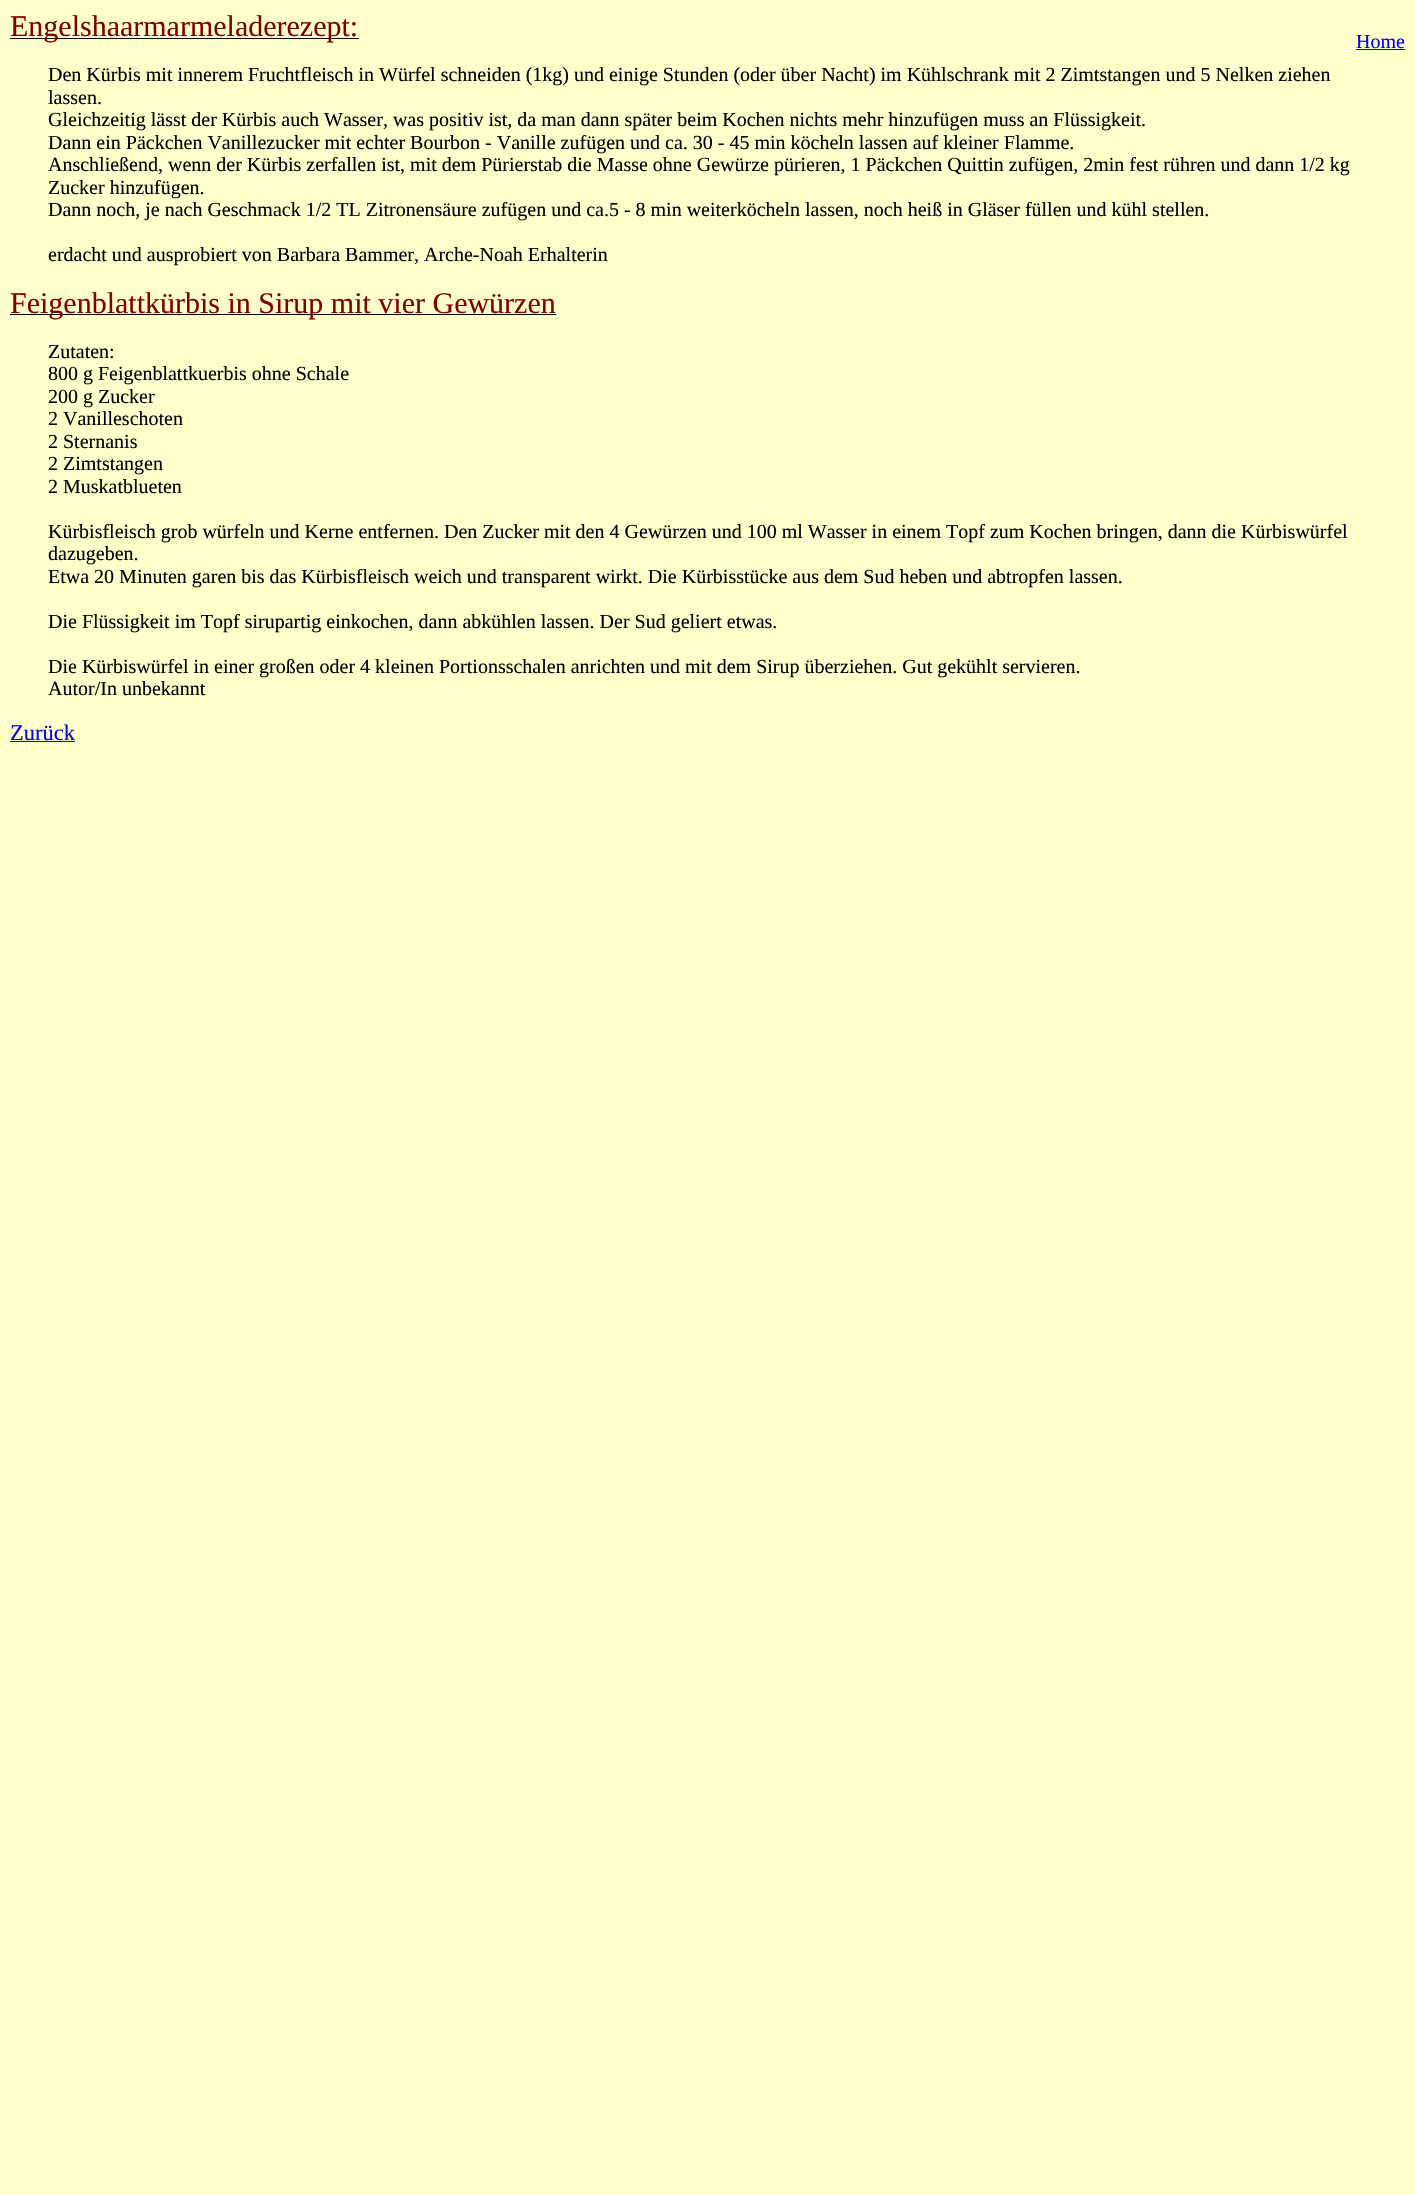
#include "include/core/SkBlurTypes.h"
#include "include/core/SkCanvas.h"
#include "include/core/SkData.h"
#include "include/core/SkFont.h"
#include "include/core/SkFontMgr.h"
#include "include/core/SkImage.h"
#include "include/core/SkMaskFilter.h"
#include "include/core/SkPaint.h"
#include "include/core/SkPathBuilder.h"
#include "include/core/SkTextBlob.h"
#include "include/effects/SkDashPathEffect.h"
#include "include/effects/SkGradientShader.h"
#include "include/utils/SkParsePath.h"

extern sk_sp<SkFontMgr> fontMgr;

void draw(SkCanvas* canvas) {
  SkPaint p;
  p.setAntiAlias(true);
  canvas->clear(SkColorSetRGB(255, 255, 204));
  p.setColor(SK_ColorBLACK);
  canvas->drawRect(SkRect::MakeLTRB(10, 38, 359, 39), p);
  p.setColor(SkColorSetRGB(0, 0, 238));
  canvas->drawRect(SkRect::MakeLTRB(1356, 49, 1405, 50), p);
  p.setColor(SK_ColorBLACK);
  canvas->drawRect(SkRect::MakeLTRB(10, 314, 556, 315), p);
  p.setColor(SkColorSetRGB(0, 0, 238));
  canvas->drawRect(SkRect::MakeLTRB(10, 741, 75, 742), p);
  SkFont font1(fontMgr->matchFamilyStyle("Liberation Serif", SkFontStyle::Normal()), 30);
  font1.setSubpixel(true);
  p.setColor(SkColorSetRGB(128, 0, 0));
  canvas->drawString("Engelshaarmarmeladerezept:", 10, 36, font1, p);
  SkFont font2(fontMgr->matchFamilyStyle("Liberation Serif", SkFontStyle::Normal()), 20);
  font2.setSubpixel(true);
  p.setColor(SkColorSetRGB(0, 0, 238));
  canvas->drawString("Home", 1356, 48, font2, p);
  p.setColor(SK_ColorBLACK);
  canvas->drawString("Den Kürbis mit innerem Fruchtfleisch in Würfel schneiden (1kg) und einige Stunden (oder über Nacht) im Kühlschrank mit 2 Zimtstangen und 5 Nelken ziehen", 48, 81, font2, p);
  canvas->drawString("lassen.", 48, 104, font2, p);
  canvas->drawString("Gleichzeitig lässt der Kürbis auch Wasser, was positiv ist, da man dann später beim Kochen nichts mehr hinzufügen muss an Flüssigkeit.", 48, 126, font2, p);
  canvas->drawString("Dann ein Päckchen Vanillezucker mit echter Bourbon - Vanille zufügen und ca. 30 - 45 min köcheln lassen auf kleiner Flamme.", 48, 149, font2, p);
  canvas->drawString("Anschließend, wenn der Kürbis zerfallen ist, mit dem Pürierstab die Masse ohne Gewürze pürieren, 1 Päckchen Quittin zufügen, 2min fest rühren und dann 1/2 kg", 48, 171, font2, p);
  canvas->drawString("Zucker hinzufügen.", 48, 194, font2, p);
  canvas->drawString("Dann noch, je nach Geschmack 1/2 TL Zitronensäure zufügen und ca.5 - 8 min weiterköcheln lassen, noch heiß in Gläser füllen und kühl stellen.", 48, 216, font2, p);
  canvas->drawString("erdacht und ausprobiert von Barbara Bammer, Arche-Noah Erhalterin", 48, 261, font2, p);
  p.setColor(SkColorSetRGB(128, 0, 0));
  canvas->drawString("Feigenblattkürbis in Sirup mit vier Gewürzen", 10, 313, font1, p);
  p.setColor(SK_ColorBLACK);
  canvas->drawString("Zutaten:", 48, 358, font2, p);
  canvas->drawString("800 g Feigenblattkuerbis ohne Schale", 48, 380, font2, p);
  canvas->drawString("200 g Zucker", 48, 403, font2, p);
  canvas->drawString("2 Vanilleschoten", 48, 425, font2, p);
  canvas->drawString("2 Sternanis", 48, 448, font2, p);
  canvas->drawString("2 Zimtstangen", 48, 470, font2, p);
  canvas->drawString("2 Muskatblueten", 48, 493, font2, p);
  canvas->drawString("Kürbisfleisch grob würfeln und Kerne entfernen. Den Zucker mit den 4 Gewürzen und 100 ml Wasser in einem Topf zum Kochen bringen, dann die Kürbiswürfel", 48, 538, font2, p);
  canvas->drawString("dazugeben.", 48, 560, font2, p);
  canvas->drawString("Etwa 20 Minuten garen bis das Kürbisfleisch weich und transparent wirkt. Die Kürbisstücke aus dem Sud heben und abtropfen lassen.", 48, 583, font2, p);
  canvas->drawString("Die Flüssigkeit im Topf sirupartig einkochen, dann abkühlen lassen. Der Sud geliert etwas.", 48, 628, font2, p);
  canvas->drawString("Die Kürbiswürfel in einer großen oder 4 kleinen Portionsschalen anrichten und mit dem Sirup überziehen. Gut gekühlt servieren.", 48, 673, font2, p);
  canvas->drawString("Autor/In unbekannt", 48, 695, font2, p);
  SkFont font3(fontMgr->matchFamilyStyle("Liberation Serif", SkFontStyle::Normal()), 22.5f);
  font3.setSubpixel(true);
  p.setColor(SkColorSetRGB(0, 0, 238));
  canvas->drawString("Zurück", 10, 740, font3, p);
}
